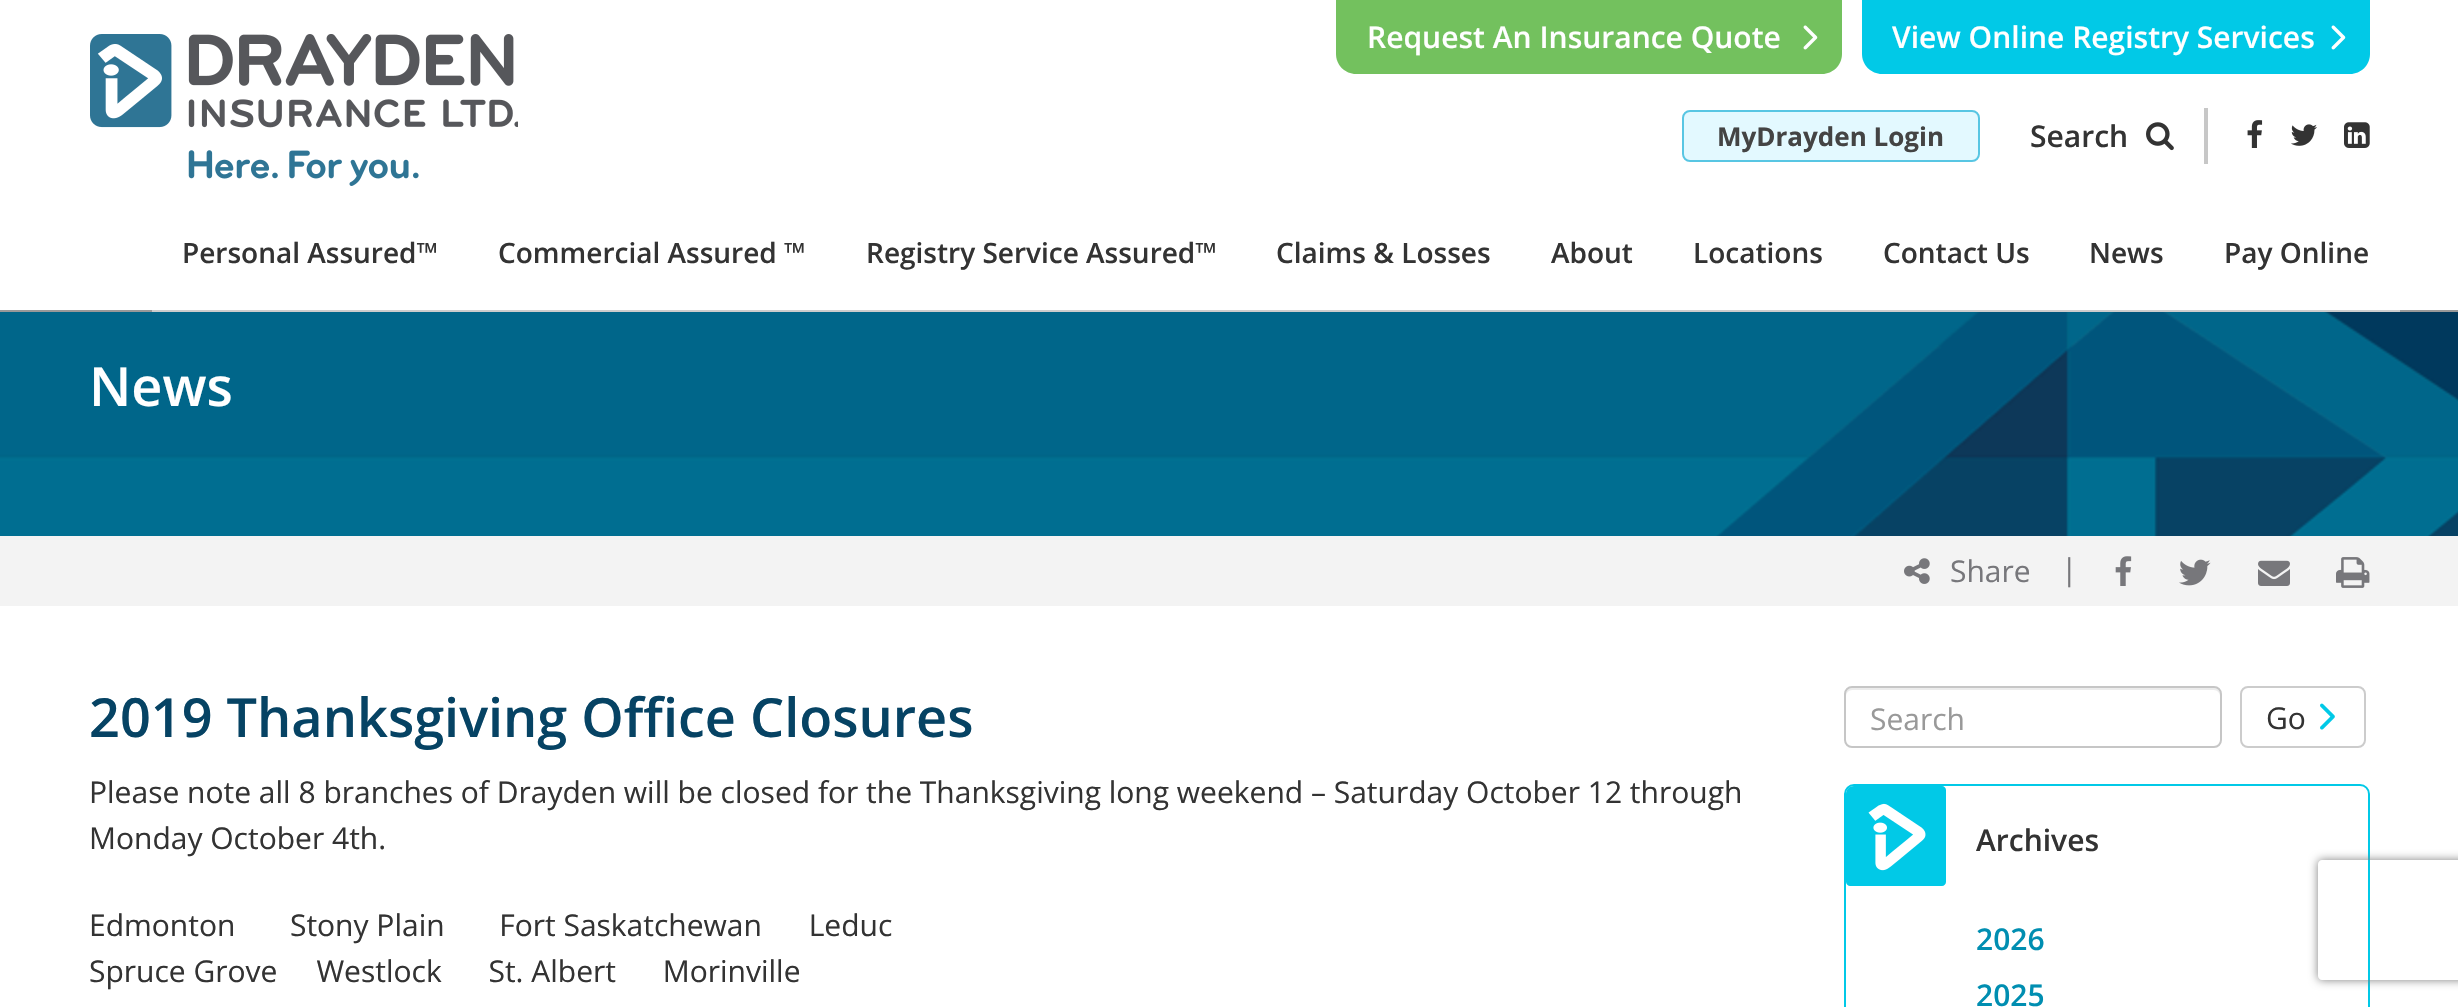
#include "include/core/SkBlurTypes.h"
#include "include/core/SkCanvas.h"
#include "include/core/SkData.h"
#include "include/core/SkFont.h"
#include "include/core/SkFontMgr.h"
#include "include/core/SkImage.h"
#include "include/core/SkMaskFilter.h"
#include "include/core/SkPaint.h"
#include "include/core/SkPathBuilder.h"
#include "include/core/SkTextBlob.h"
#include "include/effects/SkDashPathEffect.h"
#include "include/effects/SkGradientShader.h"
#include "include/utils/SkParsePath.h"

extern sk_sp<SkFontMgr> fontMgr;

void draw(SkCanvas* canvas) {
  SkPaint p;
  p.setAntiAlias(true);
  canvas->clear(SK_ColorWHITE);
  p.setColor(SkColorSetRGB(153, 153, 153));
  canvas->drawRect(SkRect::MakeLTRB(0, 310, 2458, 312), p);
  p.setColor(SkColorSetRGB(115, 193, 94));
  canvas->drawPath(SkPathBuilder().moveTo(1336, 0).lineTo(1842, 0).lineTo(1842, 54).cubicTo(1842, 65, 1833, 74, 1822, 74).lineTo(1356, 74).cubicTo(1345, 74, 1336, 65, 1336, 54).close().detach(), p);
  canvas->drawImageRect(SkImages::DeferredFromEncodedData(SkData::MakeFromFileName("images/1.png")), SkRect::MakeLTRB(1803, 25, 1818, 50), SkSamplingOptions());
  p.setColor(SkColorSetRGB(1, 201, 231));
  canvas->drawPath(SkPathBuilder().moveTo(1862, 0).lineTo(2370, 0).lineTo(2370, 54).cubicTo(2370, 65, 2361, 74, 2350, 74).lineTo(1882, 74).cubicTo(1871, 74, 1862, 65, 1862, 54).close().detach(), p);
  canvas->drawImageRect(SkImages::DeferredFromEncodedData(SkData::MakeFromFileName("images/2.png")), SkRect::MakeLTRB(2331, 25, 2346, 50), SkSamplingOptions());
  p.setColor(SkColorSetRGB(227, 249, 255));
  canvas->drawRoundRect(SkRect::MakeLTRB(1683, 111, 1979, 161), 7, 7, p);
  p.setStyle(SkPaint::kStroke_Style);
  p.setStrokeWidth(2);
  p.setColor(SkColorSetRGB(88, 198, 227));
  canvas->drawRoundRect(SkRect::MakeLTRB(1683, 111, 1979, 161), 7, 7, p);
  canvas->drawImageRect(SkImages::DeferredFromEncodedData(SkData::MakeFromFileName("images/3.png")), SkRect::MakeLTRB(2146, 122, 2174, 151), SkSamplingOptions());
  p.setStyle(SkPaint::kFill_Style);
  p.setColor(SkColorSetRGB(199, 199, 199));
  canvas->drawRect(SkRect::MakeLTRB(2204, 108, 2208, 164), p);
  canvas->drawImageRect(SkImages::DeferredFromEncodedData(SkData::MakeFromFileName("images/4.png")), SkRect::MakeLTRB(2247, 120, 2263, 148), SkSamplingOptions());
  canvas->drawImageRect(SkImages::DeferredFromEncodedData(SkData::MakeFromFileName("images/5.png")), SkRect::MakeLTRB(2291, 124, 2317, 146), SkSamplingOptions());
  canvas->drawImageRect(SkImages::DeferredFromEncodedData(SkData::MakeFromFileName("images/6.png")), SkRect::MakeLTRB(2344, 122, 2370, 148), SkSamplingOptions());
  canvas->drawImageRect(SkImages::DeferredFromEncodedData(SkData::MakeFromFileName("images/7.png")), SkRect::MakeLTRB(90, 34, 518, 186), SkSamplingOptions());
  p.setColor(SkColorSetRGB(204, 204, 204));
  canvas->drawRect(SkRect::MakeLTRB(152, 310, 2400, 312), p);
  canvas->drawImageRect(SkImages::DeferredFromEncodedData(SkData::MakeFromFileName("images/8.png")), SkRect::MakeLTRB(0, 312, 2458, 536), SkSamplingOptions());
  p.setColor(SkColorSetRGB(243, 243, 243));
  canvas->drawRect(SkRect::MakeLTRB(0, 536, 2458, 606), p);
  canvas->drawImageRect(SkImages::DeferredFromEncodedData(SkData::MakeFromFileName("images/9.png")), SkRect::MakeLTRB(1904, 558, 1930, 584), SkSamplingOptions());
  canvas->drawImageRect(SkImages::DeferredFromEncodedData(SkData::MakeFromFileName("images/10.png")), SkRect::MakeLTRB(2115, 556, 2132, 586), SkSamplingOptions());
  canvas->drawImageRect(SkImages::DeferredFromEncodedData(SkData::MakeFromFileName("images/11.png")), SkRect::MakeLTRB(2179, 559, 2211, 586), SkSamplingOptions());
  canvas->drawImageRect(SkImages::DeferredFromEncodedData(SkData::MakeFromFileName("images/12.png")), SkRect::MakeLTRB(2258, 560, 2290, 586), SkSamplingOptions());
  canvas->drawImageRect(SkImages::DeferredFromEncodedData(SkData::MakeFromFileName("images/13.png")), SkRect::MakeLTRB(2336, 557, 2370, 588), SkSamplingOptions());
  p.setColor(SkColorSetRGB(236, 236, 236));
  canvas->drawPath(SkPathBuilder().moveTo(1852, 690).lineTo(2214, 690).cubicTo(2217, 690, 2220, 693, 2220, 696).lineTo(2220, 694).cubicTo(2220, 691, 2217, 688, 2214, 688).lineTo(1852, 688).cubicTo(1849, 688, 1846, 691, 1846, 694).lineTo(1846, 696).cubicTo(1846, 693, 1849, 690, 1852, 690).close().detach(), p);
  p.setStyle(SkPaint::kStroke_Style);
  p.setColor(SkColorSetRGB(198, 198, 198));
  canvas->drawRoundRect(SkRect::MakeLTRB(1845, 687, 2221, 747), 7, 7, p);
  p.setColor(SkColorSetRGB(204, 204, 204));
  canvas->drawRoundRect(SkRect::MakeLTRB(2241, 687, 2365, 747), 7, 7, p);
  canvas->drawImageRect(SkImages::DeferredFromEncodedData(SkData::MakeFromFileName("images/14.png")), SkRect::MakeLTRB(2320, 703, 2335, 730), SkSamplingOptions());
  p.setColor(SkColorSetRGB(1, 201, 231));
  canvas->drawRoundRect(SkRect::MakeLTRB(1845, 785, 2369, 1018), 9, 9, p);
  p.setStyle(SkPaint::kFill_Style);
  canvas->drawPath(SkPathBuilder().moveTo(1854, 786).lineTo(1942, 786).cubicTo(1944, 786, 1946, 788, 1946, 790).lineTo(1946, 882).cubicTo(1946, 884, 1944, 886, 1942, 886).lineTo(1850, 886).cubicTo(1848, 886, 1846, 884, 1846, 882).lineTo(1846, 794).cubicTo(1846, 789.5f, 1849.5f, 786, 1854, 786).close().detach(), p);
  canvas->drawImageRect(SkImages::DeferredFromEncodedData(SkData::MakeFromFileName("images/15.png")), SkRect::MakeLTRB(1868, 803, 1926, 871), SkSamplingOptions());
  canvas->save();
  canvas->clipPath(SkPathBuilder(SkPathFillType::kEvenOdd).moveTo(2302, 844).lineTo(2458, 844).lineTo(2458, 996).lineTo(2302, 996).close().moveTo(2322, 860).lineTo(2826, 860).cubicTo(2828, 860, 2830, 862, 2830, 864).lineTo(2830, 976).cubicTo(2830, 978, 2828, 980, 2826, 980).lineTo(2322, 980).cubicTo(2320, 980, 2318, 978, 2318, 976).lineTo(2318, 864).cubicTo(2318, 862, 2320, 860, 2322, 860).close().detach(), true);
  p.setColor(SkColorSetRGB(128, 128, 128));
  p.setMaskFilter(SkMaskFilter::MakeBlur(kNormal_SkBlurStyle, 5));
  canvas->drawRoundRect(SkRect::MakeLTRB(2318, 860, 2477, 980), 4, 4, p);
  p.setMaskFilter(nullptr);
  canvas->restore();
  SkFont font1(fontMgr->matchFamilyStyle("Open Sans", SkFontStyle(600, SkFontStyle::kNormal_Width, SkFontStyle::kUpright_Slant)), 30);
  font1.setSubpixel(true);
  p.setColor(SK_ColorWHITE);
  canvas->drawString("Request An Insurance Quote", 1367, 48, font1, p);
  canvas->drawString("View Online Registry Services", 1892, 48, font1, p);
  SkFont font2(fontMgr->matchFamilyStyle("Open Sans", SkFontStyle::Bold()), 26);
  font2.setSubpixel(true);
  p.setColor(SkColorSetRGB(68, 68, 68));
  canvas->drawString("MyDrayden Login", 1717, 146, font2, p);
  p.setColor(SkColorSetRGB(51, 51, 51));
  canvas->drawString("Search", 2030, 147, font1, p);
  SkFont font3(fontMgr->matchFamilyStyle("Open Sans", SkFontStyle(600, SkFontStyle::kNormal_Width, SkFontStyle::kUpright_Slant)), 28);
  font3.setSubpixel(true);
  canvas->drawString("Personal Assured™", 182, 263, font3, p);
  canvas->drawString("Commercial Assured ™", 498, 263, font3, p);
  canvas->drawString("Registry Service Assured™", 866, 263, font3, p);
  canvas->drawString("Claims & Losses", 1276, 263, font3, p);
  canvas->drawString("About", 1551, 263, font3, p);
  canvas->drawString("Locations", 1693, 263, font3, p);
  canvas->drawString("Contact Us", 1883, 263, font3, p);
  canvas->drawString("News", 2089, 263, font3, p);
  canvas->drawString("Pay Online", 2224, 263, font3, p);
  SkFont font4(fontMgr->matchFamilyStyle("Open Sans", SkFontStyle(600, SkFontStyle::kNormal_Width, SkFontStyle::kUpright_Slant)), 54);
  font4.setSubpixel(true);
  p.setColor(SK_ColorWHITE);
  canvas->drawString("News", 89, 406, font4, p);
  SkFont font5(fontMgr->matchFamilyStyle("Open Sans", SkFontStyle::Normal()), 30);
  font5.setSubpixel(true);
  p.setColor(SkColorSetRGB(119, 119, 123));
  canvas->drawString("Share", 1950, 582, font5, p);
  canvas->drawString("|", 2061, 580, font5, p);
  p.setColor(SkColorSetRGB(6, 67, 100));
  canvas->drawString("2019 Thanksgiving Office Closures", 89, 737, font4, p);
  p.setColor(SkColorSetRGB(51, 51, 51));
  canvas->drawString("Please note all 8 branches of Drayden will be closed for the Thanksgiving long weekend – Saturday October 12 through", 89, 803, font5, p);
  canvas->drawString("Monday October 4th.", 89, 849, font5, p);
  canvas->drawString("Edmonton       Stony Plain       Fort Saskatchewan      Leduc", 89, 936, font5, p);
  canvas->drawString("Spruce Grove     Westlock      St. Albert      Morinville", 89, 982, font5, p);
  p.setColor(SkColorSetRGB(153, 153, 153));
  canvas->drawString("Search", 1870, 730, font5, p);
  p.setColor(SkColorSetRGB(51, 51, 51));
  canvas->drawString("Go", 2266, 729, font5, p);
  canvas->drawString("Archives", 1976, 851, font1, p);
  p.setColor(SkColorSetRGB(0, 142, 177));
  canvas->drawString("2026", 1976, 950, font1, p);
  canvas->drawString("2025", 1976, 1006, font1, p);
}
